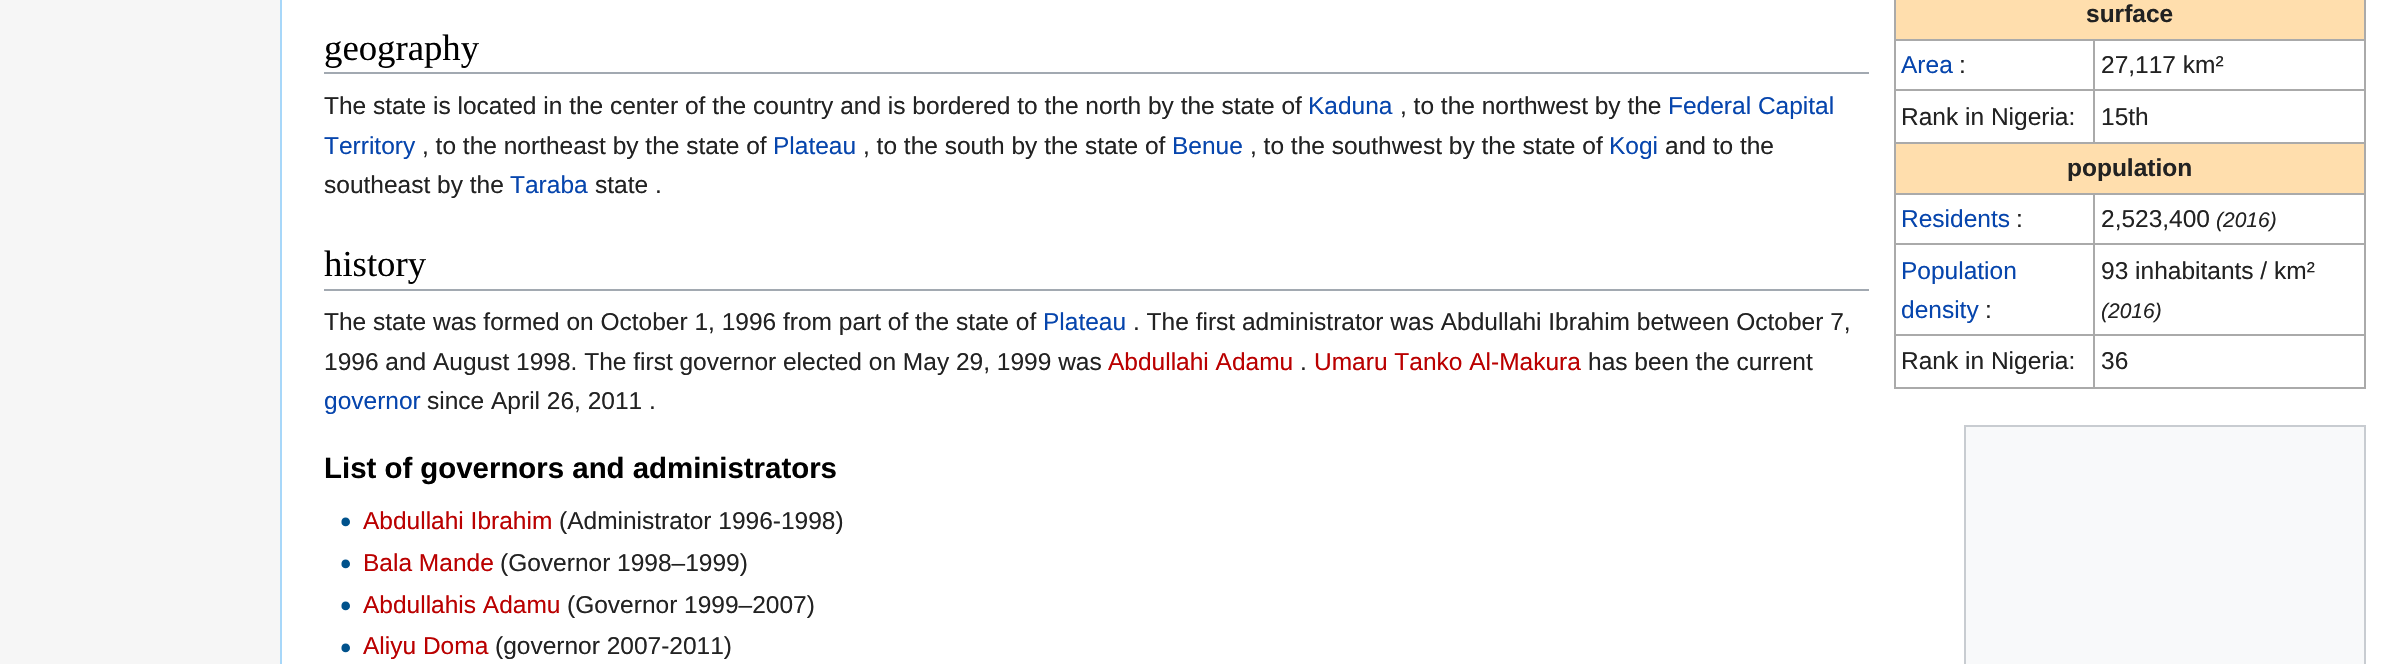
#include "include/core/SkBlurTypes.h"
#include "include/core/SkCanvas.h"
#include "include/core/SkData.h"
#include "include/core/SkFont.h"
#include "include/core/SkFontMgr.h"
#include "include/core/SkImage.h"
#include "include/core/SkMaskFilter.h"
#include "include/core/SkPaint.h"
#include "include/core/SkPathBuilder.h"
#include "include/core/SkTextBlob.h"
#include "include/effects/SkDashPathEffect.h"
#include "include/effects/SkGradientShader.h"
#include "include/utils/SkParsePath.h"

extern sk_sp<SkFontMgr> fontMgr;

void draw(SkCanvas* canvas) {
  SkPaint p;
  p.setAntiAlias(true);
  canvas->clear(SkColorSetRGB(246, 246, 246));
  p.setColor(SK_ColorWHITE);
  canvas->drawRect(SkRect::MakeLTRB(282, 0, 2408, 664), p);
  p.setColor(SkColorSetRGB(167, 215, 249));
  canvas->drawRect(SkRect::MakeLTRB(280, 0, 282, 664), p);
  p.setColor(SkColorSetRGB(162, 169, 177));
  canvas->drawRect(SkRect::MakeLTRB(324, 72, 1869, 74), p);
  p.setColor(SkColorSetRGB(170, 170, 170));
  canvas->drawRect(SkRect::MakeLTRB(2364, 0, 2366, 389), p);
  canvas->drawRect(SkRect::MakeLTRB(1894, 387, 2366, 389), p);
  canvas->drawRect(SkRect::MakeLTRB(1894, 0, 1896, 389), p);
  p.setColor(SkColorSetRGB(255, 222, 173));
  canvas->drawRect(SkRect::MakeLTRB(1896, 0, 2364, 39), p);
  p.setColor(SkColorSetRGB(170, 170, 170));
  canvas->drawRect(SkRect::MakeLTRB(2093, 39, 2366, 41), p);
  canvas->drawRect(SkRect::MakeLTRB(2093, 89, 2366, 91), p);
  canvas->drawRect(SkRect::MakeLTRB(1894, 142, 2366, 144), p);
  canvas->drawRect(SkRect::MakeLTRB(2093, 89, 2095, 144), p);
  canvas->drawRect(SkRect::MakeLTRB(1894, 89, 2095, 91), p);
  canvas->drawRect(SkRect::MakeLTRB(2093, 39, 2095, 91), p);
  canvas->drawRect(SkRect::MakeLTRB(1894, 39, 2095, 41), p);
  p.setColor(SkColorSetRGB(255, 222, 173));
  canvas->drawRect(SkRect::MakeLTRB(1896, 144, 2364, 193), p);
  p.setColor(SkColorSetRGB(170, 170, 170));
  canvas->drawRect(SkRect::MakeLTRB(2093, 193, 2366, 195), p);
  canvas->drawRect(SkRect::MakeLTRB(2093, 243, 2366, 245), p);
  canvas->drawRect(SkRect::MakeLTRB(2093, 334, 2366, 336), p);
  canvas->drawRect(SkRect::MakeLTRB(2093, 334, 2095, 389), p);
  canvas->drawRect(SkRect::MakeLTRB(1894, 334, 2095, 336), p);
  canvas->drawRect(SkRect::MakeLTRB(2093, 243, 2095, 336), p);
  canvas->drawRect(SkRect::MakeLTRB(1894, 243, 2095, 245), p);
  canvas->drawRect(SkRect::MakeLTRB(2093, 193, 2095, 245), p);
  canvas->drawRect(SkRect::MakeLTRB(1894, 193, 2095, 195), p);
  p.setColor(SkColorSetRGB(162, 169, 177));
  canvas->drawRect(SkRect::MakeLTRB(324, 289, 1869, 291), p);
  canvas->drawImageRect(SkImages::DeferredFromEncodedData(SkData::MakeFromFileName("images/1.png")), SkRect::MakeLTRB(341, 517, 350, 527), SkSamplingOptions());
  canvas->drawImageRect(SkImages::DeferredFromEncodedData(SkData::MakeFromFileName("images/1.png")), SkRect::MakeLTRB(341, 559, 350, 569), SkSamplingOptions());
  canvas->drawImageRect(SkImages::DeferredFromEncodedData(SkData::MakeFromFileName("images/1.png")), SkRect::MakeLTRB(341, 601, 350, 611), SkSamplingOptions());
  canvas->drawImageRect(SkImages::DeferredFromEncodedData(SkData::MakeFromFileName("images/1.png")), SkRect::MakeLTRB(341, 643, 350, 653), SkSamplingOptions());
  p.setColor(SkColorSetRGB(248, 249, 250));
  canvas->drawRect(SkRect::MakeLTRB(1965, 426, 2365, 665), p);
  p.setStyle(SkPaint::kStroke_Style);
  p.setStrokeWidth(2);
  p.setColor(SkColorSetRGB(200, 204, 209));
  canvas->drawRect(SkRect::MakeLTRB(1965, 426, 2365, 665), p);
  SkFont font1(fontMgr->matchFamilyStyle("Liberation Serif", SkFontStyle::Normal()), 36.75f);
  font1.setSubpixel(true);
  p.setStyle(SkPaint::kFill_Style);
  p.setColor(SK_ColorBLACK);
  canvas->drawString("geography", 324, 60, font1, p);
  SkFont font2(fontMgr->matchFamilyStyle("Liberation Sans", SkFontStyle::Bold()), 24.5f);
  font2.setSubpixel(true);
  p.setColor(SkColorSetRGB(34, 34, 34));
  canvas->drawString("surface", 2086, 22, font2, p);
  SkFont font3(fontMgr->matchFamilyStyle("Liberation Sans", SkFontStyle::Normal()), 24.5f);
  font3.setSubpixel(true);
  p.setColor(SkColorSetRGB(6, 69, 173));
  canvas->drawString("Area", 1901, 73, font3, p);
  p.setColor(SkColorSetRGB(34, 34, 34));
  canvas->drawString(":", 1959, 73, font3, p);
  canvas->drawString("27,117 km²", 2101, 73, font3, p);
  canvas->drawString("Rank in Nigeria:", 1901, 125, font3, p);
  canvas->drawString("15th", 2101, 125, font3, p);
  canvas->drawString("population", 2067, 176, font2, p);
  p.setColor(SkColorSetRGB(6, 69, 173));
  canvas->drawString("Residents", 1901, 227, font3, p);
  p.setColor(SkColorSetRGB(34, 34, 34));
  canvas->drawString(":", 2016, 227, font3, p);
  canvas->drawString("2,523,400", 2101, 227, font3, p);
  SkFont font4(fontMgr->matchFamilyStyle("Liberation Sans", SkFontStyle::Italic()), 21);
  font4.setSubpixel(true);
  canvas->drawString("(2016)", 2216, 227, font4, p);
  p.setColor(SkColorSetRGB(6, 69, 173));
  canvas->drawString("Population", 1901, 279, font3, p);
  canvas->drawString("density", 1901, 318, font3, p);
  p.setColor(SkColorSetRGB(34, 34, 34));
  canvas->drawString(":", 1985, 318, font3, p);
  canvas->drawString("93 inhabitants / km²", 2101, 279, font3, p);
  canvas->drawString("(2016)", 2101, 318, font4, p);
  canvas->drawString("Rank in Nigeria:", 1901, 369, font3, p);
  canvas->drawString("36", 2101, 369, font3, p);
  canvas->drawString("The state is located in the center of the country and is bordered to the north by the state of", 324, 114, font3, p);
  p.setColor(SkColorSetRGB(6, 69, 173));
  canvas->drawString("Kaduna", 1308, 114, font3, p);
  p.setColor(SkColorSetRGB(34, 34, 34));
  canvas->drawString(", to the northwest by the", 1400, 114, font3, p);
  p.setColor(SkColorSetRGB(6, 69, 173));
  canvas->drawString("Federal Capital", 1668, 114, font3, p);
  canvas->drawString("Territory", 324, 154, font3, p);
  p.setColor(SkColorSetRGB(34, 34, 34));
  canvas->drawString(", to the northeast by the state of", 422, 154, font3, p);
  p.setColor(SkColorSetRGB(6, 69, 173));
  canvas->drawString("Plateau", 773, 154, font3, p);
  p.setColor(SkColorSetRGB(34, 34, 34));
  canvas->drawString(", to the south by the state of", 863, 154, font3, p);
  p.setColor(SkColorSetRGB(6, 69, 173));
  canvas->drawString("Benue", 1172, 154, font3, p);
  p.setColor(SkColorSetRGB(34, 34, 34));
  canvas->drawString(", to the southwest by the state of", 1250, 154, font3, p);
  p.setColor(SkColorSetRGB(6, 69, 173));
  canvas->drawString("Kogi", 1609, 154, font3, p);
  p.setColor(SkColorSetRGB(34, 34, 34));
  canvas->drawString("and to the", 1665, 154, font3, p);
  canvas->drawString("southeast by the", 324, 193, font3, p);
  p.setColor(SkColorSetRGB(6, 69, 173));
  canvas->drawString("Taraba", 510, 193, font3, p);
  p.setColor(SkColorSetRGB(34, 34, 34));
  canvas->drawString("state .", 595, 193, font3, p);
  p.setColor(SK_ColorBLACK);
  canvas->drawString("history", 324, 276, font1, p);
  p.setColor(SkColorSetRGB(34, 34, 34));
  canvas->drawString("The state was formed on October 1, 1996 from part of the state of", 324, 330, font3, p);
  p.setColor(SkColorSetRGB(6, 69, 173));
  canvas->drawString("Plateau", 1043, 330, font3, p);
  p.setColor(SkColorSetRGB(34, 34, 34));
  canvas->drawString(". The first administrator was Abdullahi Ibrahim between October 7,", 1133, 330, font3, p);
  canvas->drawString("1996 and August 1998. The first governor elected on May 29, 1999 was", 324, 370, font3, p);
  p.setColor(SkColorSetRGB(186, 0, 0));
  canvas->drawString("Abdullahi Adamu", 1108, 370, font3, p);
  p.setColor(SkColorSetRGB(34, 34, 34));
  canvas->drawString(".", 1300, 370, font3, p);
  p.setColor(SkColorSetRGB(186, 0, 0));
  canvas->drawString("Umaru Tanko Al-Makura", 1314, 370, font3, p);
  p.setColor(SkColorSetRGB(34, 34, 34));
  canvas->drawString("has been the current", 1588, 370, font3, p);
  p.setColor(SkColorSetRGB(6, 69, 173));
  canvas->drawString("governor", 324, 409, font3, p);
  p.setColor(SkColorSetRGB(34, 34, 34));
  canvas->drawString("since April 26, 2011 .", 427, 409, font3, p);
  SkFont font5(fontMgr->matchFamilyStyle("Liberation Sans", SkFontStyle::Bold()), 29.4f);
  font5.setSubpixel(true);
  p.setColor(SK_ColorBLACK);
  canvas->drawString("List of governors and administrators", 324, 478, font5, p);
  p.setColor(SkColorSetRGB(186, 0, 0));
  canvas->drawString("Abdullahi Ibrahim", 363, 529, font3, p);
  p.setColor(SkColorSetRGB(34, 34, 34));
  canvas->drawString("(Administrator 1996-1998)", 559, 529, font3, p);
  p.setColor(SkColorSetRGB(186, 0, 0));
  canvas->drawString("Bala Mande", 363, 571, font3, p);
  p.setColor(SkColorSetRGB(34, 34, 34));
  canvas->drawString("(Governor 1998–1999)", 500, 571, font3, p);
  p.setColor(SkColorSetRGB(186, 0, 0));
  canvas->drawString("Abdullahis Adamu", 363, 613, font3, p);
  p.setColor(SkColorSetRGB(34, 34, 34));
  canvas->drawString("(Governor 1999–2007)", 567, 613, font3, p);
  p.setColor(SkColorSetRGB(186, 0, 0));
  canvas->drawString("Aliyu Doma", 363, 654, font3, p);
  p.setColor(SkColorSetRGB(34, 34, 34));
  canvas->drawString("(governor 2007-2011)", 495, 654, font3, p);
}
